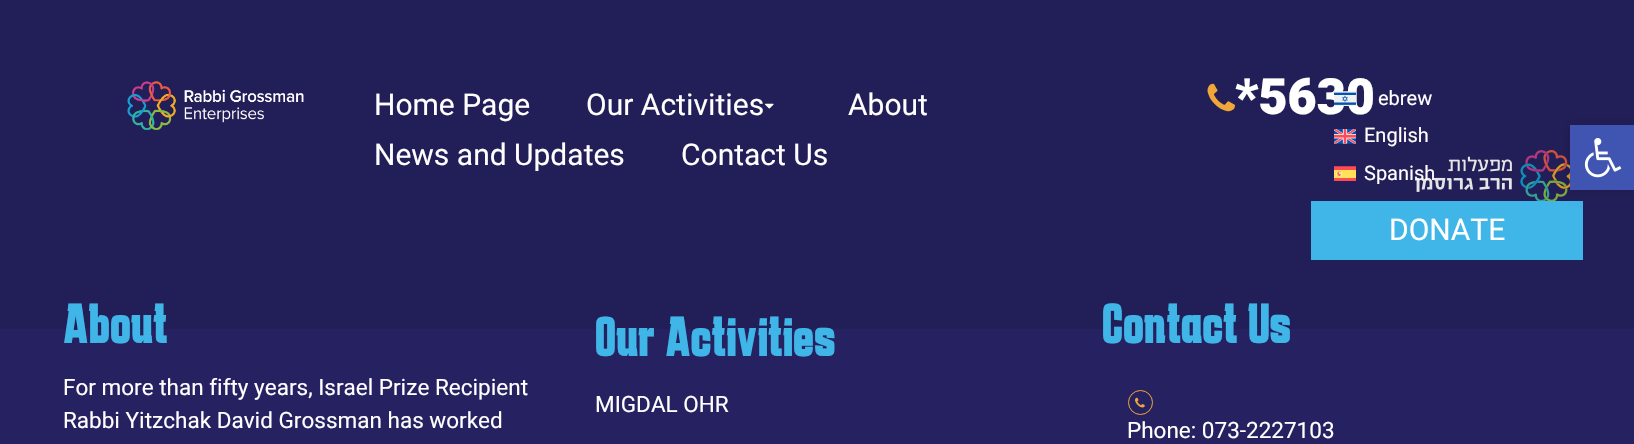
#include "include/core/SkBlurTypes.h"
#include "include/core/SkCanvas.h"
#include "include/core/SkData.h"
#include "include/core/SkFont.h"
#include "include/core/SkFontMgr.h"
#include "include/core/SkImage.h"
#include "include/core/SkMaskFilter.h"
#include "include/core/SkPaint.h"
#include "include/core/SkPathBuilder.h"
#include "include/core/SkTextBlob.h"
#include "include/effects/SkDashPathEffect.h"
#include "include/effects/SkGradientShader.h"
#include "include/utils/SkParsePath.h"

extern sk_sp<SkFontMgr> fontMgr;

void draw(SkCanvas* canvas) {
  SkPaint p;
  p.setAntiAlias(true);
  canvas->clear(SkColorSetRGB(38, 33, 97));
  canvas->drawImageRect(SkImages::DeferredFromEncodedData(SkData::MakeFromFileName("images/7.png")), SkRect::MakeLTRB(1415, 150, 1570, 201), SkSamplingOptions());
  p.setColor(SkColorSetARGB(26, 0, 0, 0));
  canvas->drawRect(SkRect::MakeLTRB(0, 0, 1634, 329), p);
  canvas->drawImageRect(SkImages::DeferredFromEncodedData(SkData::MakeFromFileName("images/1.png")), SkRect::MakeLTRB(127, 81, 304, 130), SkSamplingOptions());
  canvas->drawImageRect(SkImages::DeferredFromEncodedData(SkData::MakeFromFileName("images/2.png")), SkRect::MakeLTRB(765, 103, 774, 109), SkSamplingOptions());
  canvas->drawImageRect(SkImages::DeferredFromEncodedData(SkData::MakeFromFileName("images/3.png")), SkRect::MakeLTRB(1207, 83, 1235, 112), SkSamplingOptions());
  canvas->drawImageRect(SkImages::DeferredFromEncodedData(SkData::MakeFromFileName("images/5.png")), SkRect::MakeLTRB(1334, 129, 1356, 144), SkSamplingOptions());
  canvas->drawImageRect(SkImages::DeferredFromEncodedData(SkData::MakeFromFileName("images/6.png")), SkRect::MakeLTRB(1334, 166, 1356, 181), SkSamplingOptions());
  p.setColor(SkColorSetRGB(64, 181, 232));
  canvas->drawRect(SkRect::MakeLTRB(1311, 201, 1583, 260), p);
  p.setStyle(SkPaint::kStroke_Style);
  p.setStrokeWidth(1);
  p.setColor(SkColorSetRGB(240, 166, 56));
  canvas->drawCircle(1140.5f, 402.5f, 12, p);
  canvas->drawImageRect(SkImages::DeferredFromEncodedData(SkData::MakeFromFileName("images/8.png")), SkRect::MakeLTRB(1135, 397, 1145, 408), SkSamplingOptions());
  p.setStyle(SkPaint::kFill_Style);
  p.setColor(SkColorSetARGB(26, 0, 0, 0));
  p.setMaskFilter(SkMaskFilter::MakeBlur(kNormal_SkBlurStyle, 6));
  canvas->drawRect(SkRect::MakeLTRB(1570, 125, 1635, 190), p);
  p.setMaskFilter(nullptr);
  p.setColor(SkColorSetRGB(64, 84, 178));
  canvas->drawRect(SkRect::MakeLTRB(1570, 125, 1634, 190), p);
  canvas->drawImageRect(SkImages::DeferredFromEncodedData(SkData::MakeFromFileName("images/9.png")), SkRect::MakeLTRB(1584, 138, 1622, 178), SkSamplingOptions());
  SkFont font1(fontMgr->matchFamilyStyle("Heebo", SkFontStyle::Normal()), 30);
  font1.setSubpixel(true);
  p.setColor(SK_ColorWHITE);
  canvas->drawString("Home Page", 374, 115, font1, p);
  canvas->drawString("Our Activities", 586, 115, font1, p);
  canvas->drawString("About", 848, 115, font1, p);
  canvas->drawString("News and Updates", 374, 165, font1, p);
  canvas->drawString("Contact Us", 681, 165, font1, p);
  SkFont font2(fontMgr->matchFamilyStyle("Heebo", SkFontStyle(900, SkFontStyle::kNormal_Width, SkFontStyle::kUpright_Slant)), 50);
  font2.setSubpixel(true);
  canvas->drawString("*5630", 1235, 114, font2, p);
  canvas->drawImageRect(SkImages::DeferredFromEncodedData(SkData::MakeFromFileName("images/4.png")), SkRect::MakeLTRB(1334, 91, 1356, 106), SkSamplingOptions());
  SkFont font3(fontMgr->matchFamilyStyle("Heebo", SkFontStyle::Normal()), 20);
  font3.setSubpixel(true);
  canvas->drawString("ebrew", 1378, 105, font3, p);
  canvas->drawString("English", 1364, 142, font3, p);
  canvas->drawString("Spanish", 1364, 180, font3, p);
  canvas->drawString("DONATE", 1389, 240, font1, p);
  SkFont font4(fontMgr->matchFamilyStyle("Karantina", SkFontStyle::Bold()), 56.25f);
  font4.setSubpixel(true);
  p.setColor(SkColorSetRGB(64, 181, 232));
  canvas->drawString("About", 63, 343, font4, p);
  SkFont font5(fontMgr->matchFamilyStyle("Heebo", SkFontStyle::Normal()), 22.5f);
  font5.setSubpixel(true);
  p.setColor(SK_ColorWHITE);
  canvas->drawString("For more than fifty years, Israel Prize Recipient", 63, 395, font5, p);
  canvas->drawString("Rabbi Yitzchak David Grossman has worked", 63, 428, font5, p);
  p.setColor(SkColorSetRGB(64, 181, 232));
  canvas->drawString("Our Activities", 595, 356, font4, p);
  p.setColor(SK_ColorWHITE);
  canvas->drawString("MIGDAL OHR", 595, 412, font5, p);
  p.setColor(SkColorSetRGB(64, 181, 232));
  canvas->drawString("Contact Us", 1102, 343, font4, p);
  p.setColor(SK_ColorWHITE);
  canvas->drawString("Phone: 073-2227103", 1127, 438, font5, p);
}
